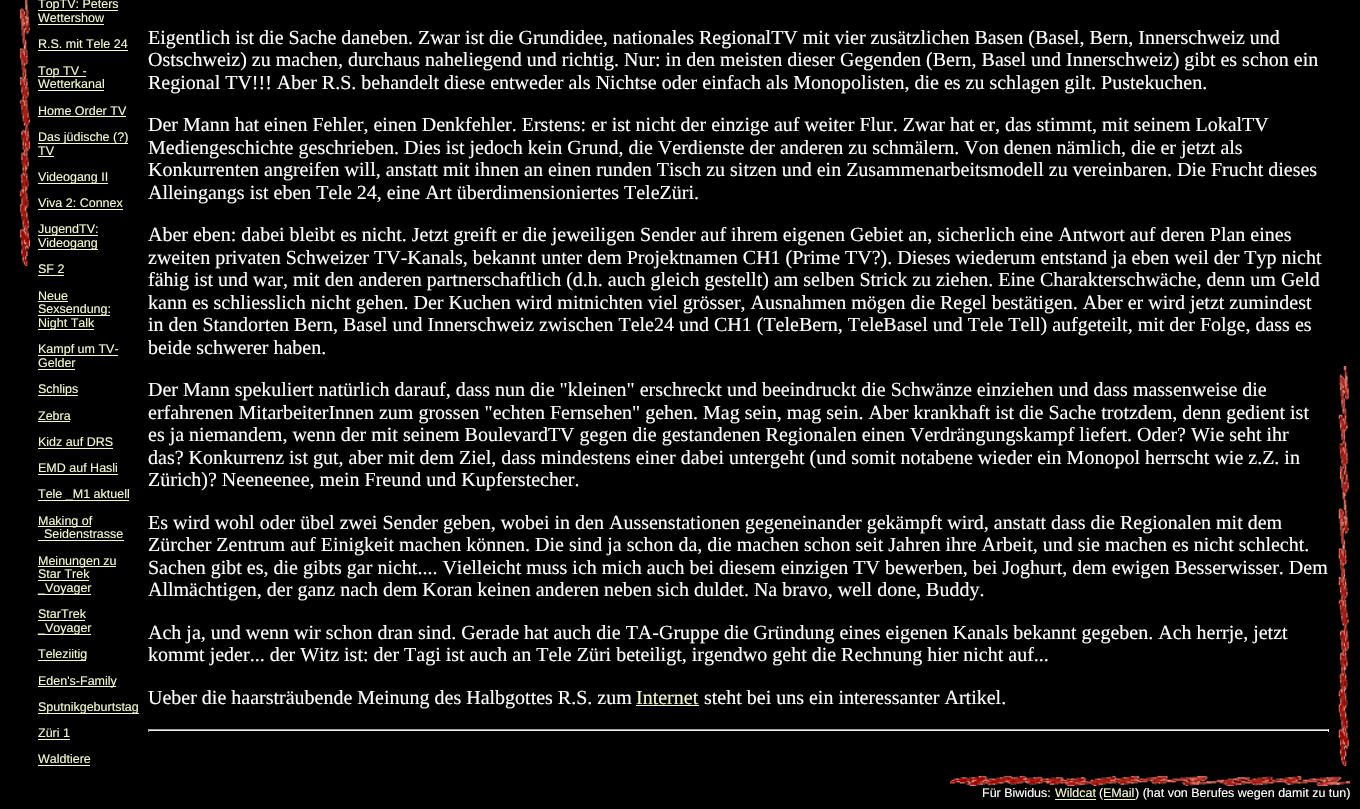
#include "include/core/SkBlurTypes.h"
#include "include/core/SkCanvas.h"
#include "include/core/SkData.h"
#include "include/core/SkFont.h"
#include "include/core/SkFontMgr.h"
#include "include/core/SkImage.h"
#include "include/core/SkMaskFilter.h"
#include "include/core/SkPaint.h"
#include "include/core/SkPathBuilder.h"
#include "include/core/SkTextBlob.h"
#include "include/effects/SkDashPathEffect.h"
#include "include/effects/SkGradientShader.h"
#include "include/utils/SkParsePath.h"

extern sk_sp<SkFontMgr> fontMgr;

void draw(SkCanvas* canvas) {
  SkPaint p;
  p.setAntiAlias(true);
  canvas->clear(SK_ColorBLACK);
  canvas->drawImageRect(SkImages::DeferredFromEncodedData(SkData::MakeFromFileName("images/1.png")), SkRect::MakeLTRB(19, 0, 30, 266), SkSamplingOptions());
  p.setColor(SkColorSetRGB(243, 249, 201));
  canvas->drawRect(SkRect::MakeLTRB(38, 10, 118, 11), p);
  canvas->drawRect(SkRect::MakeLTRB(38, 24, 104, 25), p);
  canvas->drawRect(SkRect::MakeLTRB(38, 50, 128, 51), p);
  canvas->drawRect(SkRect::MakeLTRB(38, 76, 86, 77), p);
  canvas->drawRect(SkRect::MakeLTRB(38, 90, 104, 91), p);
  canvas->drawRect(SkRect::MakeLTRB(38, 116, 126, 117), p);
  canvas->drawRect(SkRect::MakeLTRB(38, 143, 128, 144), p);
  canvas->drawRect(SkRect::MakeLTRB(38, 156, 54, 157), p);
  canvas->drawRect(SkRect::MakeLTRB(38, 183, 108, 184), p);
  canvas->drawRect(SkRect::MakeLTRB(38, 209, 123, 210), p);
  canvas->drawRect(SkRect::MakeLTRB(38, 235, 98, 236), p);
  canvas->drawRect(SkRect::MakeLTRB(38, 249, 98, 250), p);
  canvas->drawRect(SkRect::MakeLTRB(38, 275, 64, 276), p);
  canvas->drawRect(SkRect::MakeLTRB(38, 301, 68, 302), p);
  canvas->drawRect(SkRect::MakeLTRB(38, 315, 110, 316), p);
  canvas->drawRect(SkRect::MakeLTRB(38, 329, 94, 330), p);
  canvas->drawRect(SkRect::MakeLTRB(38, 355, 118, 356), p);
  canvas->drawRect(SkRect::MakeLTRB(38, 369, 75, 370), p);
  canvas->drawRect(SkRect::MakeLTRB(38, 395, 78, 396), p);
  canvas->drawRect(SkRect::MakeLTRB(38, 421, 70, 422), p);
  canvas->drawRect(SkRect::MakeLTRB(38, 448, 113, 449), p);
  canvas->drawRect(SkRect::MakeLTRB(38, 474, 118, 475), p);
  canvas->drawRect(SkRect::MakeLTRB(38, 500, 129, 501), p);
  canvas->drawRect(SkRect::MakeLTRB(38, 526, 91, 527), p);
  canvas->drawRect(SkRect::MakeLTRB(38, 540, 124, 541), p);
  canvas->drawRect(SkRect::MakeLTRB(38, 566, 116, 567), p);
  canvas->drawRect(SkRect::MakeLTRB(38, 580, 89, 581), p);
  canvas->drawRect(SkRect::MakeLTRB(38, 594, 91, 595), p);
  canvas->drawRect(SkRect::MakeLTRB(38, 620, 85, 621), p);
  canvas->drawRect(SkRect::MakeLTRB(38, 634, 91, 635), p);
  canvas->drawRect(SkRect::MakeLTRB(38, 660, 86, 661), p);
  canvas->drawRect(SkRect::MakeLTRB(38, 686, 116, 687), p);
  canvas->drawRect(SkRect::MakeLTRB(38, 713, 139, 714), p);
  canvas->drawRect(SkRect::MakeLTRB(38, 739, 70, 740), p);
  canvas->drawRect(SkRect::MakeLTRB(38, 765, 90, 766), p);
  canvas->drawRect(SkRect::MakeLTRB(636, 705, 699, 706), p);
  p.setColor(SkColorSetRGB(159, 159, 159));
  canvas->drawRect(SkRect::MakeLTRB(148, 729, 1329, 730), p);
  p.setColor(SkColorSetRGB(238, 238, 238));
  canvas->drawRect(SkRect::MakeLTRB(1328, 729, 1329, 732), p);
  canvas->drawRect(SkRect::MakeLTRB(148, 730, 1329, 731), p);
  p.setColor(SkColorSetRGB(159, 159, 159));
  canvas->drawRect(SkRect::MakeLTRB(148, 729, 149, 732), p);
  canvas->drawImageRect(SkImages::DeferredFromEncodedData(SkData::MakeFromFileName("images/2.png")), SkRect::MakeLTRB(1338, 366, 1349, 766), SkSamplingOptions());
  canvas->drawImageRect(SkImages::DeferredFromEncodedData(SkData::MakeFromFileName("images/3.png")), SkRect::MakeLTRB(950, 775, 1350, 786), SkSamplingOptions());
  p.setColor(SkColorSetRGB(243, 249, 201));
  canvas->drawRect(SkRect::MakeLTRB(1055, 799, 1096, 800), p);
  canvas->drawRect(SkRect::MakeLTRB(1104, 799, 1135, 800), p);
  SkFont font1(fontMgr->matchFamilyStyle("Liberation Sans", SkFontStyle::Normal()), 12.5f);
  font1.setSubpixel(true);
  canvas->drawString("TopTV: Peters", 38, 8, font1, p);
  canvas->drawString("Wettershow", 38, 22, font1, p);
  canvas->drawString("R.S. mit Tele 24", 38, 48, font1, p);
  canvas->drawString("Top TV -", 38, 75, font1, p);
  canvas->drawString("Wetterkanal", 38, 88, font1, p);
  canvas->drawString("Home Order TV", 38, 115, font1, p);
  canvas->drawString("Das jüdische (?)", 38, 141, font1, p);
  canvas->drawString("TV", 38, 155, font1, p);
  canvas->drawString("Videogang II", 38, 181, font1, p);
  canvas->drawString("Viva 2: Connex", 38, 207, font1, p);
  canvas->drawString("JugendTV:", 38, 233, font1, p);
  canvas->drawString("Videogang", 38, 247, font1, p);
  canvas->drawString("SF 2", 38, 273, font1, p);
  canvas->drawString("Neue", 38, 300, font1, p);
  canvas->drawString("Sexsendung:", 38, 313, font1, p);
  canvas->drawString("Night Talk", 38, 327, font1, p);
  canvas->drawString("Kampf um TV-", 38, 353, font1, p);
  canvas->drawString("Gelder", 38, 367, font1, p);
  canvas->drawString("Schlips", 38, 393, font1, p);
  canvas->drawString("Zebra", 38, 420, font1, p);
  canvas->drawString("Kidz auf DRS", 38, 446, font1, p);
  canvas->drawString("EMD auf Hasli", 38, 472, font1, p);
  canvas->drawString("Tele _M1 aktuell", 38, 498, font1, p);
  canvas->drawString("Making of", 38, 525, font1, p);
  canvas->drawString("Seidenstrasse", 44, 538, font1, p);
  canvas->drawString("Meinungen zu", 38, 565, font1, p);
  canvas->drawString("Star Trek", 38, 578, font1, p);
  canvas->drawString("_Voyager", 38, 592, font1, p);
  canvas->drawString("StarTrek", 38, 618, font1, p);
  canvas->drawString("_Voyager", 38, 632, font1, p);
  canvas->drawString("Teleziitig", 38, 658, font1, p);
  canvas->drawString("Eden's-Family", 38, 685, font1, p);
  canvas->drawString("Sputnikgeburtstag", 38, 711, font1, p);
  canvas->drawString("Züri 1", 38, 737, font1, p);
  canvas->drawString("Waldtiere", 38, 763, font1, p);
  SkFont font2(fontMgr->matchFamilyStyle("Liberation Serif", SkFontStyle::Normal()), 20);
  font2.setSubpixel(true);
  p.setColor(SK_ColorWHITE);
  canvas->drawString("Eigentlich ist die Sache daneben. Zwar ist die Grundidee, nationales RegionalTV mit vier zusätzlichen Basen (Basel, Bern, Innerschweiz und", 148, 44, font2, p);
  canvas->drawString("Ostschweiz) zu machen, durchaus naheliegend und richtig. Nur: in den meisten dieser Gegenden (Bern, Basel und Innerschweiz) gibt es schon ein", 148, 66, font2, p);
  canvas->drawString("Regional TV!!! Aber R.S. behandelt diese entweder als Nichtse oder einfach als Monopolisten, die es zu schlagen gilt. Pustekuchen.", 148, 89, font2, p);
  canvas->drawString("Der Mann hat einen Fehler, einen Denkfehler. Erstens: er ist nicht der einzige auf weiter Flur. Zwar hat er, das stimmt, mit seinem LokalTV", 148, 131, font2, p);
  canvas->drawString("Mediengeschichte geschrieben. Dies ist jedoch kein Grund, die Verdienste der anderen zu schmälern. Von denen nämlich, die er jetzt als", 148, 154, font2, p);
  canvas->drawString("Konkurrenten angreifen will, anstatt mit ihnen an einen runden Tisch zu sitzen und ein Zusammenarbeitsmodell zu vereinbaren. Die Frucht dieses", 148, 176, font2, p);
  canvas->drawString("Alleingangs ist eben Tele 24, eine Art überdimensioniertes TeleZüri.", 148, 199, font2, p);
  canvas->drawString("Aber eben: dabei bleibt es nicht. Jetzt greift er die jeweiligen Sender auf ihrem eigenen Gebiet an, sicherlich eine Antwort auf deren Plan eines", 148, 241, font2, p);
  canvas->drawString("zweiten privaten Schweizer TV-Kanals, bekannt unter dem Projektnamen CH1 (Prime TV?). Dieses wiederum entstand ja eben weil der Typ nicht", 148, 264, font2, p);
  canvas->drawString("fähig ist und war, mit den anderen partnerschaftlich (d.h. auch gleich gestellt) am selben Strick zu ziehen. Eine Charakterschwäche, denn um Geld", 148, 286, font2, p);
  canvas->drawString("kann es schliesslich nicht gehen. Der Kuchen wird mitnichten viel grösser, Ausnahmen mögen die Regel bestätigen. Aber er wird jetzt zumindest", 148, 309, font2, p);
  canvas->drawString("in den Standorten Bern, Basel und Innerschweiz zwischen Tele24 und CH1 (TeleBern, TeleBasel und Tele Tell) aufgeteilt, mit der Folge, dass es", 148, 331, font2, p);
  canvas->drawString("beide schwerer haben.", 148, 354, font2, p);
  canvas->drawString("Der Mann spekuliert natürlich darauf, dass nun die \"kleinen\" erschreckt und beeindruckt die Schwänze einziehen und dass massenweise die", 148, 396, font2, p);
  canvas->drawString("erfahrenen MitarbeiterInnen zum grossen \"echten Fernsehen\" gehen. Mag sein, mag sein. Aber krankhaft ist die Sache trotzdem, denn gedient ist", 148, 419, font2, p);
  canvas->drawString("es ja niemandem, wenn der mit seinem BoulevardTV gegen die gestandenen Regionalen einen Verdrängungskampf liefert. Oder? Wie seht ihr", 148, 441, font2, p);
  canvas->drawString("das? Konkurrenz ist gut, aber mit dem Ziel, dass mindestens einer dabei untergeht (und somit notabene wieder ein Monopol herrscht wie z.Z. in", 148, 464, font2, p);
  canvas->drawString("Zürich)? Neeneenee, mein Freund und Kupferstecher.", 148, 486, font2, p);
  canvas->drawString("Es wird wohl oder übel zwei Sender geben, wobei in den Aussenstationen gegeneinander gekämpft wird, anstatt dass die Regionalen mit dem", 148, 529, font2, p);
  canvas->drawString("Zürcher Zentrum auf Einigkeit machen können. Die sind ja schon da, die machen schon seit Jahren ihre Arbeit, und sie machen es nicht schlecht.", 148, 551, font2, p);
  canvas->drawString("Sachen gibt es, die gibts gar nicht.... Vielleicht muss ich mich auch bei diesem einzigen TV bewerben, bei Joghurt, dem ewigen Besserwisser. Dem", 148, 574, font2, p);
  canvas->drawString("Allmächtigen, der ganz nach dem Koran keinen anderen neben sich duldet. Na bravo, well done, Buddy.", 148, 596, font2, p);
  canvas->drawString("Ach ja, und wenn wir schon dran sind. Gerade hat auch die TA-Gruppe die Gründung eines eigenen Kanals bekannt gegeben. Ach herrje, jetzt", 148, 639, font2, p);
  canvas->drawString("kommt jeder... der Witz ist: der Tagi ist auch an Tele Züri beteiligt, irgendwo geht die Rechnung hier nicht auf...", 148, 661, font2, p);
  canvas->drawString("Ueber die haarsträubende Meinung des Halbgottes R.S. zum", 148, 704, font2, p);
  p.setColor(SkColorSetRGB(243, 249, 201));
  canvas->drawString("Internet", 636, 704, font2, p);
  p.setColor(SK_ColorWHITE);
  canvas->drawString("steht bei uns ein interessanter Artikel.", 704, 704, font2, p);
  canvas->drawString("Für Biwidus:", 982, 797, font1, p);
  p.setColor(SkColorSetRGB(243, 249, 201));
  canvas->drawString("Wildcat", 1055, 797, font1, p);
  p.setColor(SK_ColorWHITE);
  canvas->drawString("(", 1099, 797, font1, p);
  p.setColor(SkColorSetRGB(243, 249, 201));
  canvas->drawString("EMail", 1103, 797, font1, p);
  p.setColor(SK_ColorWHITE);
  canvas->drawString(") (hat von Berufes wegen damit zu tun)", 1135, 797, font1, p);
}
